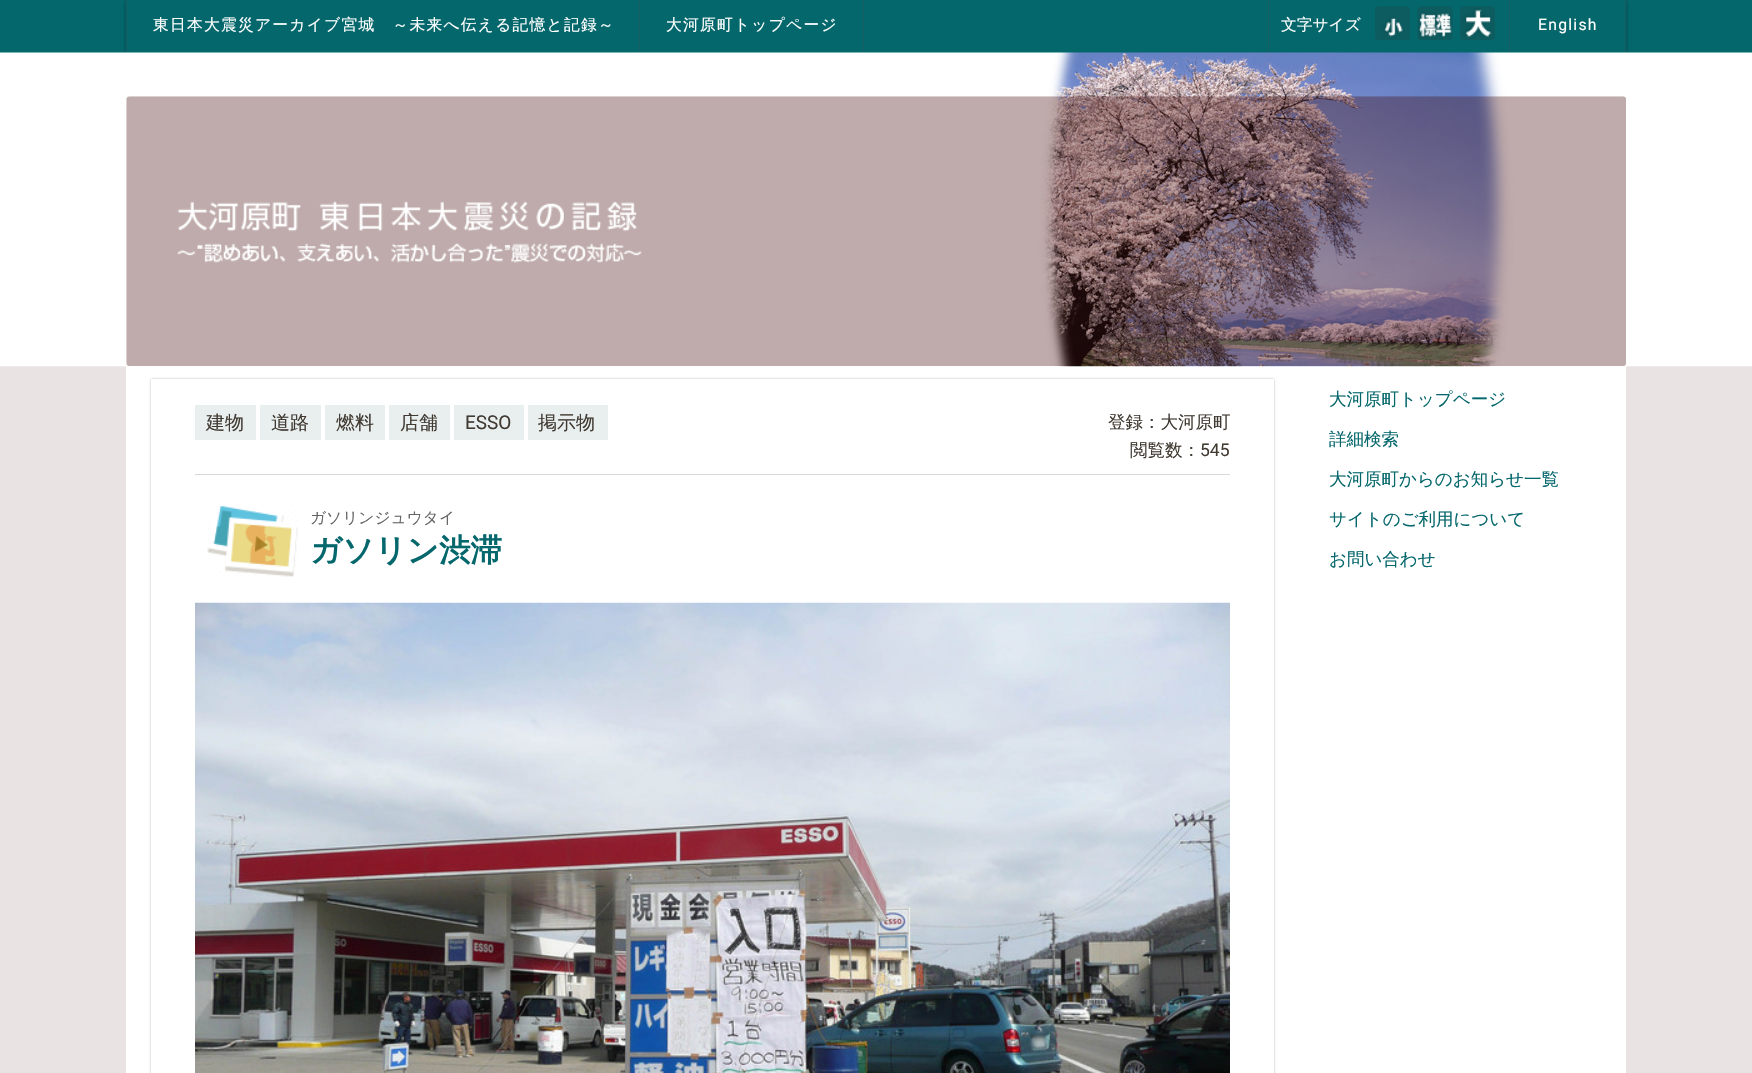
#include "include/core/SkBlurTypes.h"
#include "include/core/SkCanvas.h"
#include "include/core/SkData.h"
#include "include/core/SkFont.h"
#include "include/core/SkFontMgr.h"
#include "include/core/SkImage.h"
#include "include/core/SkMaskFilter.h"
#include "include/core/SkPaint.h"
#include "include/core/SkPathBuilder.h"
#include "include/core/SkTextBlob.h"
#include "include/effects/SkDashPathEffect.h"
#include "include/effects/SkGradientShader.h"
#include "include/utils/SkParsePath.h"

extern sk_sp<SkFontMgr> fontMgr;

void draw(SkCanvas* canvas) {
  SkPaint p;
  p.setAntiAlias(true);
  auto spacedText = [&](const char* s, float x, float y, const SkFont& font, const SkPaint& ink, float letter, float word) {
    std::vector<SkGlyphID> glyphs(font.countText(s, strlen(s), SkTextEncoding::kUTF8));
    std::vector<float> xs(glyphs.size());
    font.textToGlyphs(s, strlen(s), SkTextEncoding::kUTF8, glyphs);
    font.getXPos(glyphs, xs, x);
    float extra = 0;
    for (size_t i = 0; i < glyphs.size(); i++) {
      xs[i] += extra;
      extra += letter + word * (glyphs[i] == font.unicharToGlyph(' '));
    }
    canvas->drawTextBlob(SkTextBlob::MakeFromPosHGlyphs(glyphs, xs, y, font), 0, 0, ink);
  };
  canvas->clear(SkColorSetRGB(233, 227, 227));
  p.setColor(SkColorSetRGB(4, 103, 108));
  canvas->drawRect(SkRect::MakeLTRB(0, 0, 1752, 53), p);
  p.setColor(SkColorSetARGB(77, 0, 0, 0));
  p.setMaskFilter(SkMaskFilter::MakeBlur(kNormal_SkBlurStyle, 2));
  canvas->drawRect(SkRect::MakeLTRB(126, 0, 1626, 53), p);
  p.setMaskFilter(nullptr);
  p.setColor(SkColorSetRGB(4, 103, 108));
  canvas->drawRect(SkRect::MakeLTRB(126, 0, 1625, 53), p);
  p.setColor(SkColorSetRGB(23, 93, 97));
  canvas->drawRect(SkRect::MakeLTRB(639, 0, 640, 50), p);
  canvas->drawRect(SkRect::MakeLTRB(126, 0, 127, 50), p);
  canvas->drawRect(SkRect::MakeLTRB(863, 0, 864, 50), p);
  canvas->drawRect(SkRect::MakeLTRB(1509, 0, 1510, 53), p);
  canvas->drawRect(SkRect::MakeLTRB(1268, 0, 1269, 53), p);
  canvas->drawImageRect(SkImages::DeferredFromEncodedData(SkData::MakeFromFileName("images/1.png")), SkRect::MakeLTRB(1375, 6, 1410, 40), SkSamplingOptions());
  canvas->drawImageRect(SkImages::DeferredFromEncodedData(SkData::MakeFromFileName("images/2.png")), SkRect::MakeLTRB(1417, 6, 1453, 40), SkSamplingOptions());
  canvas->drawImageRect(SkImages::DeferredFromEncodedData(SkData::MakeFromFileName("images/3.png")), SkRect::MakeLTRB(1460, 6, 1495, 40), SkSamplingOptions());
  canvas->drawRect(SkRect::MakeLTRB(1625, 0, 1626, 53), p);
  p.setColor(SK_ColorWHITE);
  canvas->drawRect(SkRect::MakeLTRB(126, 366, 1626, 1073), p);
  canvas->drawImageRect(SkImages::DeferredFromEncodedData(SkData::MakeFromFileName("images/4.png")), SkRect::MakeLTRB(0, 52, 1752, 367), SkSamplingOptions());
  canvas->drawImageRect(SkImages::DeferredFromEncodedData(SkData::MakeFromFileName("images/5.png")), SkRect::MakeLTRB(126, 96, 1626, 366), SkSamplingOptions());
  canvas->drawImageRect(SkImages::DeferredFromEncodedData(SkData::MakeFromFileName("images/6.png")), SkRect::MakeLTRB(177, 201, 642, 263), SkSamplingOptions());
  p.setColor(SkColorSetARGB(77, 0, 0, 0));
  p.setMaskFilter(SkMaskFilter::MakeBlur(kNormal_SkBlurStyle, 1));
  canvas->drawRect(SkRect::MakeLTRB(151, 379, 1274, 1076), p);
  p.setMaskFilter(nullptr);
  p.setColor(SK_ColorWHITE);
  canvas->drawRect(SkRect::MakeLTRB(151, 379, 1274, 1073), p);
  p.setColor(SkColorSetRGB(219, 216, 214));
  canvas->drawRect(SkRect::MakeLTRB(195, 474, 1230, 475), p);
  p.setColor(SkColorSetRGB(233, 238, 238));
  canvas->drawRect(SkRect::MakeLTRB(195, 405, 256, 440), p);
  canvas->drawRect(SkRect::MakeLTRB(260, 405, 321, 440), p);
  canvas->drawRect(SkRect::MakeLTRB(325, 405, 385, 440), p);
  canvas->drawRect(SkRect::MakeLTRB(389, 405, 450, 440), p);
  canvas->drawRect(SkRect::MakeLTRB(454, 405, 524, 440), p);
  canvas->drawRect(SkRect::MakeLTRB(528, 405, 608, 440), p);
  canvas->drawImageRect(SkImages::DeferredFromEncodedData(SkData::MakeFromFileName("images/7.png")), SkRect::MakeLTRB(207, 505, 298, 577), SkSamplingOptions());
  canvas->drawImageRect(SkImages::DeferredFromEncodedData(SkData::MakeFromFileName("images/8.png")), SkRect::MakeLTRB(195, 602, 1230, 1073), SkSamplingOptions());
  SkFont font1(fontMgr->matchFamilyStyle("WenQuanYi Zen Hei", SkFontStyle(500, SkFontStyle::kNormal_Width, SkFontStyle::kUpright_Slant)), 15.75f);
  font1.setSubpixel(true);
  p.setColor(SK_ColorWHITE);
  spacedText("東日本大震災アーカイブ宮城　～未来へ伝える記憶と記録～", 153, 30, font1, p, 1.25f, 0);
  spacedText("大河原町トップページ", 666, 30, font1, p, 1.25f, 0);
  canvas->drawString("文字サイズ", 1281, 30, font1, p);
  SkFont font2(fontMgr->matchFamilyStyle("Roboto", SkFontStyle::Normal()), 15.75f);
  font2.setSubpixel(true);
  spacedText("English", 1538, 30, font2, p, 1.25f, 0);
  SkFont font3(fontMgr->matchFamilyStyle("WenQuanYi Zen Hei", SkFontStyle(500, SkFontStyle::kNormal_Width, SkFontStyle::kUpright_Slant)), 19);
  font3.setSubpixel(true);
  p.setColor(SkColorSetRGB(64, 58, 50));
  canvas->drawString("建物", 206, 429, font3, p);
  canvas->drawString("道路", 271, 429, font3, p);
  canvas->drawString("燃料", 336, 429, font3, p);
  canvas->drawString("店舗", 400, 429, font3, p);
  SkFont font4(fontMgr->matchFamilyStyle("Roboto", SkFontStyle::Normal()), 19);
  font4.setSubpixel(true);
  canvas->drawString("ESSO", 465, 429, font4, p);
  canvas->drawString("掲示物", 538, 429, font3, p);
  SkFont font5(fontMgr->matchFamilyStyle("WenQuanYi Zen Hei", SkFontStyle(500, SkFontStyle::kNormal_Width, SkFontStyle::kUpright_Slant)), 17.5f);
  font5.setSubpixel(true);
  canvas->drawString("登録：大河原町", 1108, 428, font5, p);
  canvas->drawString("閲覧数：", 1130, 456, font5, p);
  SkFont font6(fontMgr->matchFamilyStyle("Roboto", SkFontStyle::Normal()), 17.5f);
  font6.setSubpixel(true);
  canvas->drawString("545", 1200, 456, font6, p);
  p.setColor(SkColorSetRGB(102, 102, 102));
  canvas->drawString("ガソリンジュウタイ", 310, 523, font1, p);
  SkFont font7(fontMgr->matchFamilyStyle("WenQuanYi Zen Hei", SkFontStyle::Bold()), 31.5f);
  font7.setSubpixel(true);
  p.setColor(SkColorSetRGB(4, 103, 108));
  canvas->drawString("ガソリン渋滞", 310, 561, font7, p);
  canvas->drawString("大河原町トップページ", 1329, 405, font5, p);
  canvas->drawString("詳細検索", 1329, 445, font5, p);
  canvas->drawString("大河原町からのお知らせ一覧", 1329, 485, font5, p);
  canvas->drawString("サイトのご利用について", 1329, 525, font5, p);
  canvas->drawString("お問い合わせ", 1329, 565, font5, p);
}
